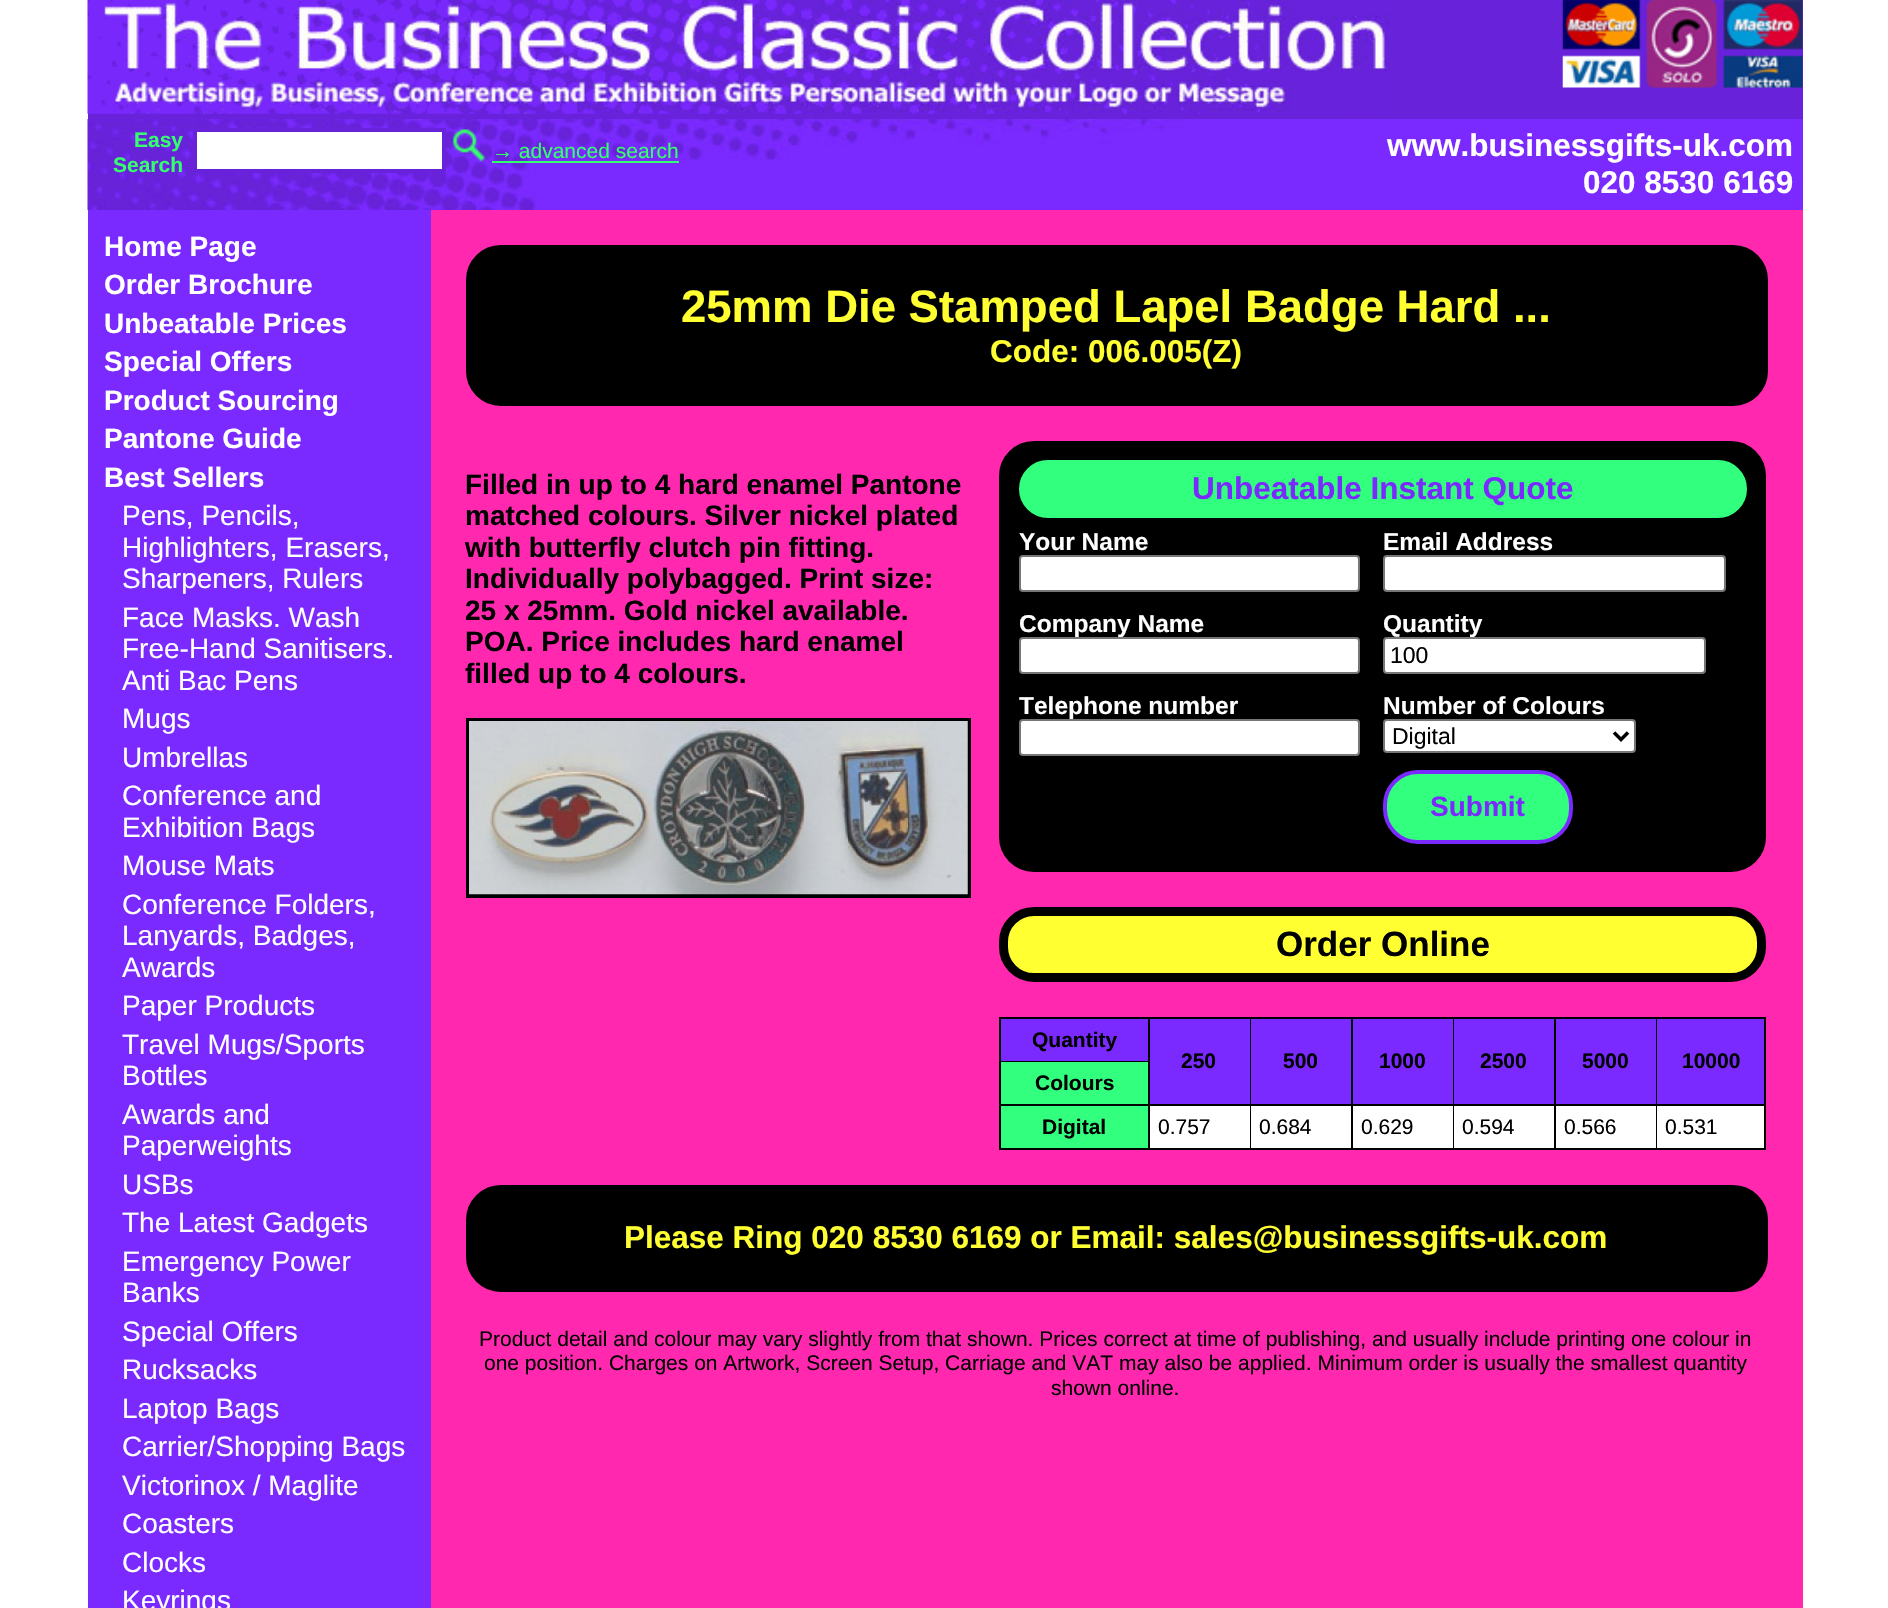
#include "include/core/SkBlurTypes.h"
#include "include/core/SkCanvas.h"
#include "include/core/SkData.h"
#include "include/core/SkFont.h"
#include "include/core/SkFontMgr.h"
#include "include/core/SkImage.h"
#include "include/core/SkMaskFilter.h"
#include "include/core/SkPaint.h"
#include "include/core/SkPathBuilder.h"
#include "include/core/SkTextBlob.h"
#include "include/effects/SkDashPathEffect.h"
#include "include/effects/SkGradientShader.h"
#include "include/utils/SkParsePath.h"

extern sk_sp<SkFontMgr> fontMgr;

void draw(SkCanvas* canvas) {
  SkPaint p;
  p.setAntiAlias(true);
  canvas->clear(SK_ColorWHITE);
  p.setColor(SkColorSetRGB(255, 40, 175));
  canvas->drawRect(SkRect::MakeLTRB(431, 210, 1803, 1608), p);
  p.setColor(SkColorSetRGB(104, 34, 218));
  canvas->drawRect(SkRect::MakeLTRB(88, 0, 1803, 119), p);
  canvas->drawImageRect(SkImages::DeferredFromEncodedData(SkData::MakeFromFileName("images/1.png")), SkRect::MakeLTRB(87, 0, 1390, 114), SkSamplingOptions());
  canvas->drawImageRect(SkImages::DeferredFromEncodedData(SkData::MakeFromFileName("images/2.png")), SkRect::MakeLTRB(1562, 0, 1803, 88), SkSamplingOptions());
  p.setColor(SkColorSetRGB(122, 41, 255));
  canvas->drawRect(SkRect::MakeLTRB(1183, 119, 1803, 210), p);
  canvas->drawImageRect(SkImages::DeferredFromEncodedData(SkData::MakeFromFileName("images/3.png")), SkRect::MakeLTRB(87, 119, 1183, 210), SkSamplingOptions());
  p.setColor(SK_ColorWHITE);
  canvas->drawRect(SkRect::MakeLTRB(195, 130, 444, 171), p);
  p.setStyle(SkPaint::kStroke_Style);
  p.setStrokeWidth(4);
  p.setColor(SkColorSetRGB(104, 34, 218));
  canvas->drawRect(SkRect::MakeLTRB(195, 130, 444, 171), p);
  canvas->drawImageRect(SkImages::DeferredFromEncodedData(SkData::MakeFromFileName("images/4.png")), SkRect::MakeLTRB(452, 129, 486, 162), SkSamplingOptions());
  p.setStyle(SkPaint::kFill_Style);
  p.setColor(SkColorSetRGB(53, 255, 109));
  canvas->drawRect(SkRect::MakeLTRB(492, 161, 679, 163), p);
  p.setColor(SkColorSetRGB(122, 41, 255));
  canvas->drawRect(SkRect::MakeLTRB(88, 210, 431, 1608), p);
  p.setColor(SK_ColorBLACK);
  canvas->drawRoundRect(SkRect::MakeLTRB(483.5f, 262.5f, 1750.5f, 388.5f), 17.5f, 17.5f, p);
  p.setStyle(SkPaint::kStroke_Style);
  p.setStrokeWidth(35);
  canvas->drawRoundRect(SkRect::MakeLTRB(483.5f, 262.5f, 1750.5f, 388.5f), 17.5f, 17.5f, p);
  p.setStrokeWidth(4);
  canvas->drawRect(SkRect::MakeLTRB(468, 720, 969, 896), p);
  canvas->drawImageRect(SkImages::DeferredFromEncodedData(SkData::MakeFromFileName("images/5.png")), SkRect::MakeLTRB(469, 721, 968, 895), SkSamplingOptions());
  p.setStyle(SkPaint::kFill_Style);
  canvas->drawRoundRect(SkRect::MakeLTRB(1000, 442, 1765, 871), 34, 34, p);
  p.setStyle(SkPaint::kStroke_Style);
  p.setStrokeWidth(2);
  canvas->drawRoundRect(SkRect::MakeLTRB(1000, 442, 1765, 871), 34, 34, p);
  p.setStyle(SkPaint::kFill_Style);
  p.setColor(SkColorSetRGB(50, 255, 125));
  canvas->drawRoundRect(SkRect::MakeLTRB(1020, 461, 1746, 517), 28, 28, p);
  p.setStyle(SkPaint::kStroke_Style);
  canvas->drawRoundRect(SkRect::MakeLTRB(1020, 461, 1746, 517), 28, 28, p);
  p.setStyle(SkPaint::kFill_Style);
  p.setColor(SK_ColorWHITE);
  canvas->drawRoundRect(SkRect::MakeLTRB(1020, 556, 1359, 591), 3, 3, p);
  p.setStyle(SkPaint::kStroke_Style);
  p.setColor(SkColorSetRGB(118, 118, 118));
  canvas->drawRoundRect(SkRect::MakeLTRB(1020, 556, 1359, 591), 3, 3, p);
  p.setStyle(SkPaint::kFill_Style);
  p.setColor(SK_ColorWHITE);
  canvas->drawRoundRect(SkRect::MakeLTRB(1384, 556, 1725, 591), 3, 3, p);
  p.setStyle(SkPaint::kStroke_Style);
  p.setColor(SkColorSetRGB(118, 118, 118));
  canvas->drawRoundRect(SkRect::MakeLTRB(1384, 556, 1725, 591), 3, 3, p);
  p.setStyle(SkPaint::kFill_Style);
  p.setColor(SK_ColorWHITE);
  canvas->drawRoundRect(SkRect::MakeLTRB(1020, 638, 1359, 673), 3, 3, p);
  p.setStyle(SkPaint::kStroke_Style);
  p.setColor(SkColorSetRGB(118, 118, 118));
  canvas->drawRoundRect(SkRect::MakeLTRB(1020, 638, 1359, 673), 3, 3, p);
  p.setStyle(SkPaint::kFill_Style);
  p.setColor(SK_ColorWHITE);
  canvas->drawRoundRect(SkRect::MakeLTRB(1384, 638, 1705, 673), 3, 3, p);
  p.setStyle(SkPaint::kStroke_Style);
  p.setColor(SkColorSetRGB(118, 118, 118));
  canvas->drawRoundRect(SkRect::MakeLTRB(1384, 638, 1705, 673), 3, 3, p);
  p.setStyle(SkPaint::kFill_Style);
  p.setColor(SK_ColorWHITE);
  canvas->drawRoundRect(SkRect::MakeLTRB(1020, 720, 1359, 755), 3, 3, p);
  p.setStyle(SkPaint::kStroke_Style);
  p.setColor(SkColorSetRGB(118, 118, 118));
  canvas->drawRoundRect(SkRect::MakeLTRB(1020, 720, 1359, 755), 3, 3, p);
  p.setStyle(SkPaint::kFill_Style);
  p.setColor(SK_ColorWHITE);
  canvas->drawRoundRect(SkRect::MakeLTRB(1384, 720, 1635, 752), 3, 3, p);
  p.setStyle(SkPaint::kStroke_Style);
  p.setColor(SkColorSetRGB(118, 118, 118));
  canvas->drawRoundRect(SkRect::MakeLTRB(1384, 720, 1635, 752), 3, 3, p);
  p.setStrokeWidth(3.5f);
  p.setColor(SK_ColorBLACK);
  canvas->drawPath(SkPathBuilder().moveTo(1614, 732.5f).lineTo(1621, 739.5f).lineTo(1628, 732.5f).detach(), p);
  p.setStyle(SkPaint::kFill_Style);
  p.setColor(SkColorSetRGB(50, 255, 125));
  canvas->drawRoundRect(SkRect::MakeLTRB(1385, 772, 1571, 842), 33, 33, p);
  p.setStyle(SkPaint::kStroke_Style);
  p.setStrokeWidth(4);
  p.setColor(SkColorSetRGB(122, 41, 255));
  canvas->drawRoundRect(SkRect::MakeLTRB(1385, 772, 1571, 842), 33, 33, p);
  p.setStyle(SkPaint::kFill_Style);
  p.setColor(SkColorSetRGB(255, 255, 50));
  canvas->drawRoundRect(SkRect::MakeLTRB(1003.5f, 911.5f, 1761.5f, 977.5f), 30.5f, 30.5f, p);
  p.setStyle(SkPaint::kStroke_Style);
  p.setStrokeWidth(9);
  p.setColor(SK_ColorBLACK);
  canvas->drawRoundRect(SkRect::MakeLTRB(1003.5f, 911.5f, 1761.5f, 977.5f), 30.5f, 30.5f, p);
  p.setStyle(SkPaint::kFill_Style);
  canvas->drawRect(SkRect::MakeLTRB(999, 1017, 1766, 1150), p);
  p.setColor(SkColorSetRGB(122, 41, 255));
  canvas->drawRect(SkRect::MakeLTRB(1001, 1019, 1148, 1061), p);
  canvas->drawRect(SkRect::MakeLTRB(1150, 1019, 1250, 1104), p);
  canvas->drawRect(SkRect::MakeLTRB(1251, 1019, 1351, 1104), p);
  canvas->drawRect(SkRect::MakeLTRB(1353, 1019, 1453, 1104), p);
  canvas->drawRect(SkRect::MakeLTRB(1454, 1019, 1554, 1104), p);
  canvas->drawRect(SkRect::MakeLTRB(1556, 1019, 1656, 1104), p);
  canvas->drawRect(SkRect::MakeLTRB(1657, 1019, 1764, 1104), p);
  p.setColor(SkColorSetRGB(50, 255, 125));
  canvas->drawRect(SkRect::MakeLTRB(1001, 1062, 1148, 1104), p);
  canvas->drawRect(SkRect::MakeLTRB(1001, 1106, 1148, 1148), p);
  p.setColor(SK_ColorWHITE);
  canvas->drawRect(SkRect::MakeLTRB(1150, 1106, 1250, 1148), p);
  canvas->drawRect(SkRect::MakeLTRB(1251, 1106, 1351, 1148), p);
  canvas->drawRect(SkRect::MakeLTRB(1353, 1106, 1453, 1148), p);
  canvas->drawRect(SkRect::MakeLTRB(1454, 1106, 1554, 1148), p);
  canvas->drawRect(SkRect::MakeLTRB(1556, 1106, 1656, 1148), p);
  canvas->drawRect(SkRect::MakeLTRB(1657, 1106, 1764, 1148), p);
  p.setColor(SK_ColorBLACK);
  canvas->drawRoundRect(SkRect::MakeLTRB(483.5f, 1202.5f, 1750.5f, 1274.5f), 17.5f, 17.5f, p);
  p.setStyle(SkPaint::kStroke_Style);
  p.setStrokeWidth(35);
  canvas->drawRoundRect(SkRect::MakeLTRB(483.5f, 1202.5f, 1750.5f, 1274.5f), 17.5f, 17.5f, p);
  SkFont font1(fontMgr->matchFamilyStyle("Liberation Sans", SkFontStyle::Bold()), 21);
  font1.setSubpixel(true);
  p.setStyle(SkPaint::kFill_Style);
  p.setColor(SkColorSetRGB(53, 255, 109));
  canvas->drawString("Easy", 134, 147, font1, p);
  canvas->drawString("Search", 113, 172, font1, p);
  SkFont font2(fontMgr->matchFamilyStyle("Liberation Sans", SkFontStyle::Normal()), 21);
  font2.setSubpixel(true);
  canvas->drawString("→ advanced search", 492, 158, font2, p);
  SkFont font3(fontMgr->matchFamilyStyle("Liberation Sans", SkFontStyle::Bold()), 31.5f);
  font3.setSubpixel(true);
  p.setColor(SK_ColorWHITE);
  canvas->drawString("www.businessgifts-uk.com", 1387, 156, font3, p);
  canvas->drawString("020 8530 6169", 1583, 193, font3, p);
  SkFont font4(fontMgr->matchFamilyStyle("Liberation Sans", SkFontStyle::Bold()), 28);
  font4.setSubpixel(true);
  canvas->drawString("Home Page", 104, 256, font4, p);
  canvas->drawString("Order Brochure", 104, 294, font4, p);
  canvas->drawString("Unbeatable Prices", 104, 333, font4, p);
  canvas->drawString("Special Offers", 104, 371, font4, p);
  canvas->drawString("Product Sourcing", 104, 410, font4, p);
  canvas->drawString("Pantone Guide", 104, 448, font4, p);
  canvas->drawString("Best Sellers", 104, 487, font4, p);
  SkFont font5(fontMgr->matchFamilyStyle("Liberation Sans", SkFontStyle::Normal()), 28);
  font5.setSubpixel(true);
  canvas->drawString("Pens, Pencils,", 122, 525, font5, p);
  canvas->drawString("Highlighters, Erasers,", 122, 557, font5, p);
  canvas->drawString("Sharpeners, Rulers", 122, 588, font5, p);
  canvas->drawString("Face Masks. Wash", 122, 627, font5, p);
  canvas->drawString("Free-Hand Sanitisers.", 122, 658, font5, p);
  canvas->drawString("Anti Bac Pens", 122, 690, font5, p);
  canvas->drawString("Mugs", 122, 728, font5, p);
  canvas->drawString("Umbrellas", 122, 767, font5, p);
  canvas->drawString("Conference and", 122, 805, font5, p);
  canvas->drawString("Exhibition Bags", 122, 837, font5, p);
  canvas->drawString("Mouse Mats", 122, 875, font5, p);
  canvas->drawString("Conference Folders,", 122, 914, font5, p);
  canvas->drawString("Lanyards, Badges,", 122, 945, font5, p);
  canvas->drawString("Awards", 122, 977, font5, p);
  canvas->drawString("Paper Products", 122, 1015, font5, p);
  canvas->drawString("Travel Mugs/Sports", 122, 1054, font5, p);
  canvas->drawString("Bottles", 122, 1085, font5, p);
  canvas->drawString("Awards and", 122, 1124, font5, p);
  canvas->drawString("Paperweights", 122, 1155, font5, p);
  canvas->drawString("USBs", 122, 1194, font5, p);
  canvas->drawString("The Latest Gadgets", 122, 1232, font5, p);
  canvas->drawString("Emergency Power", 122, 1271, font5, p);
  canvas->drawString("Banks", 122, 1302, font5, p);
  canvas->drawString("Special Offers", 122, 1341, font5, p);
  canvas->drawString("Rucksacks", 122, 1379, font5, p);
  canvas->drawString("Laptop Bags", 122, 1418, font5, p);
  canvas->drawString("Carrier/Shopping Bags", 122, 1456, font5, p);
  canvas->drawString("Victorinox / Maglite", 122, 1495, font5, p);
  canvas->drawString("Coasters", 122, 1533, font5, p);
  canvas->drawString("Clocks", 122, 1572, font5, p);
  canvas->drawString("Keyrings", 122, 1610, font5, p);
  SkFont font6(fontMgr->matchFamilyStyle("Liberation Sans", SkFontStyle::Bold()), 45.5f);
  font6.setSubpixel(true);
  p.setColor(SkColorSetRGB(255, 255, 50));
  canvas->drawString("25mm Die Stamped Lapel Badge Hard ...", 681, 322, font6, p);
  canvas->drawString("Code: 006.005(Z)", 990, 362, font3, p);
  p.setColor(SK_ColorBLACK);
  canvas->drawString("Filled in up to 4 hard enamel Pantone", 465, 494, font4, p);
  canvas->drawString("matched colours. Silver nickel plated", 465, 525, font4, p);
  canvas->drawString("with butterfly clutch pin fitting.", 465, 557, font4, p);
  canvas->drawString("Individually polybagged. Print size:", 465, 588, font4, p);
  canvas->drawString("25 x 25mm. Gold nickel available.", 465, 620, font4, p);
  canvas->drawString("POA. Price includes hard enamel", 465, 651, font4, p);
  canvas->drawString("filled up to 4 colours.", 465, 683, font4, p);
  p.setColor(SkColorSetRGB(122, 41, 255));
  canvas->drawString("Unbeatable Instant Quote", 1192, 499, font3, p);
  SkFont font7(fontMgr->matchFamilyStyle("Liberation Sans", SkFontStyle::Bold()), 24.5f);
  font7.setSubpixel(true);
  p.setColor(SK_ColorWHITE);
  canvas->drawString("Your Name", 1019, 550, font7, p);
  canvas->drawString("Email Address", 1383, 550, font7, p);
  canvas->drawString("Company Name", 1019, 632, font7, p);
  canvas->drawString("Quantity", 1383, 632, font7, p);
  SkFont font8(fontMgr->matchFamilyStyle("Liberation Sans", SkFontStyle::Normal()), 23);
  font8.setSubpixel(true);
  p.setColor(SK_ColorBLACK);
  canvas->drawString("100", 1390, 663, font8, p);
  p.setColor(SK_ColorWHITE);
  canvas->drawString("Telephone number", 1019, 714, font7, p);
  canvas->drawString("Number of Colours", 1383, 714, font7, p);
  p.setColor(SK_ColorBLACK);
  canvas->drawString("Digital", 1392, 744, font8, p);
  p.setColor(SkColorSetRGB(122, 41, 255));
  canvas->drawString("Submit", 1430, 816, font4, p);
  SkFont font9(fontMgr->matchFamilyStyle("Liberation Sans", SkFontStyle::Bold()), 35);
  font9.setSubpixel(true);
  p.setColor(SK_ColorBLACK);
  canvas->drawString("Order Online", 1276, 956, font9, p);
  canvas->drawString("Quantity", 1032, 1047, font1, p);
  canvas->drawString("250", 1181, 1068, font1, p);
  canvas->drawString("500", 1283, 1068, font1, p);
  canvas->drawString("1000", 1379, 1068, font1, p);
  canvas->drawString("2500", 1480, 1068, font1, p);
  canvas->drawString("5000", 1582, 1068, font1, p);
  canvas->drawString("10000", 1682, 1068, font1, p);
  canvas->drawString("Colours", 1035, 1090, font1, p);
  canvas->drawString("Digital", 1042, 1134, font1, p);
  canvas->drawString("0.757", 1158, 1134, font2, p);
  canvas->drawString("0.684", 1259, 1134, font2, p);
  canvas->drawString("0.629", 1361, 1134, font2, p);
  canvas->drawString("0.594", 1462, 1134, font2, p);
  canvas->drawString("0.566", 1564, 1134, font2, p);
  canvas->drawString("0.531", 1665, 1134, font2, p);
  p.setColor(SkColorSetRGB(255, 255, 50));
  canvas->drawString("Please Ring 020 8530 6169 or Email: sales@businessgifts-uk.com", 624, 1248, font3, p);
  p.setColor(SK_ColorBLACK);
  canvas->drawString("Product detail and colour may vary slightly from that shown. Prices correct at time of publishing, and usually include printing one colour in", 479, 1346, font2, p);
  canvas->drawString("one position. Charges on Artwork, Screen Setup, Carriage and VAT may also be applied. Minimum order is usually the smallest quantity", 484, 1370, font2, p);
  canvas->drawString("shown online.", 1051, 1395, font2, p);
}
